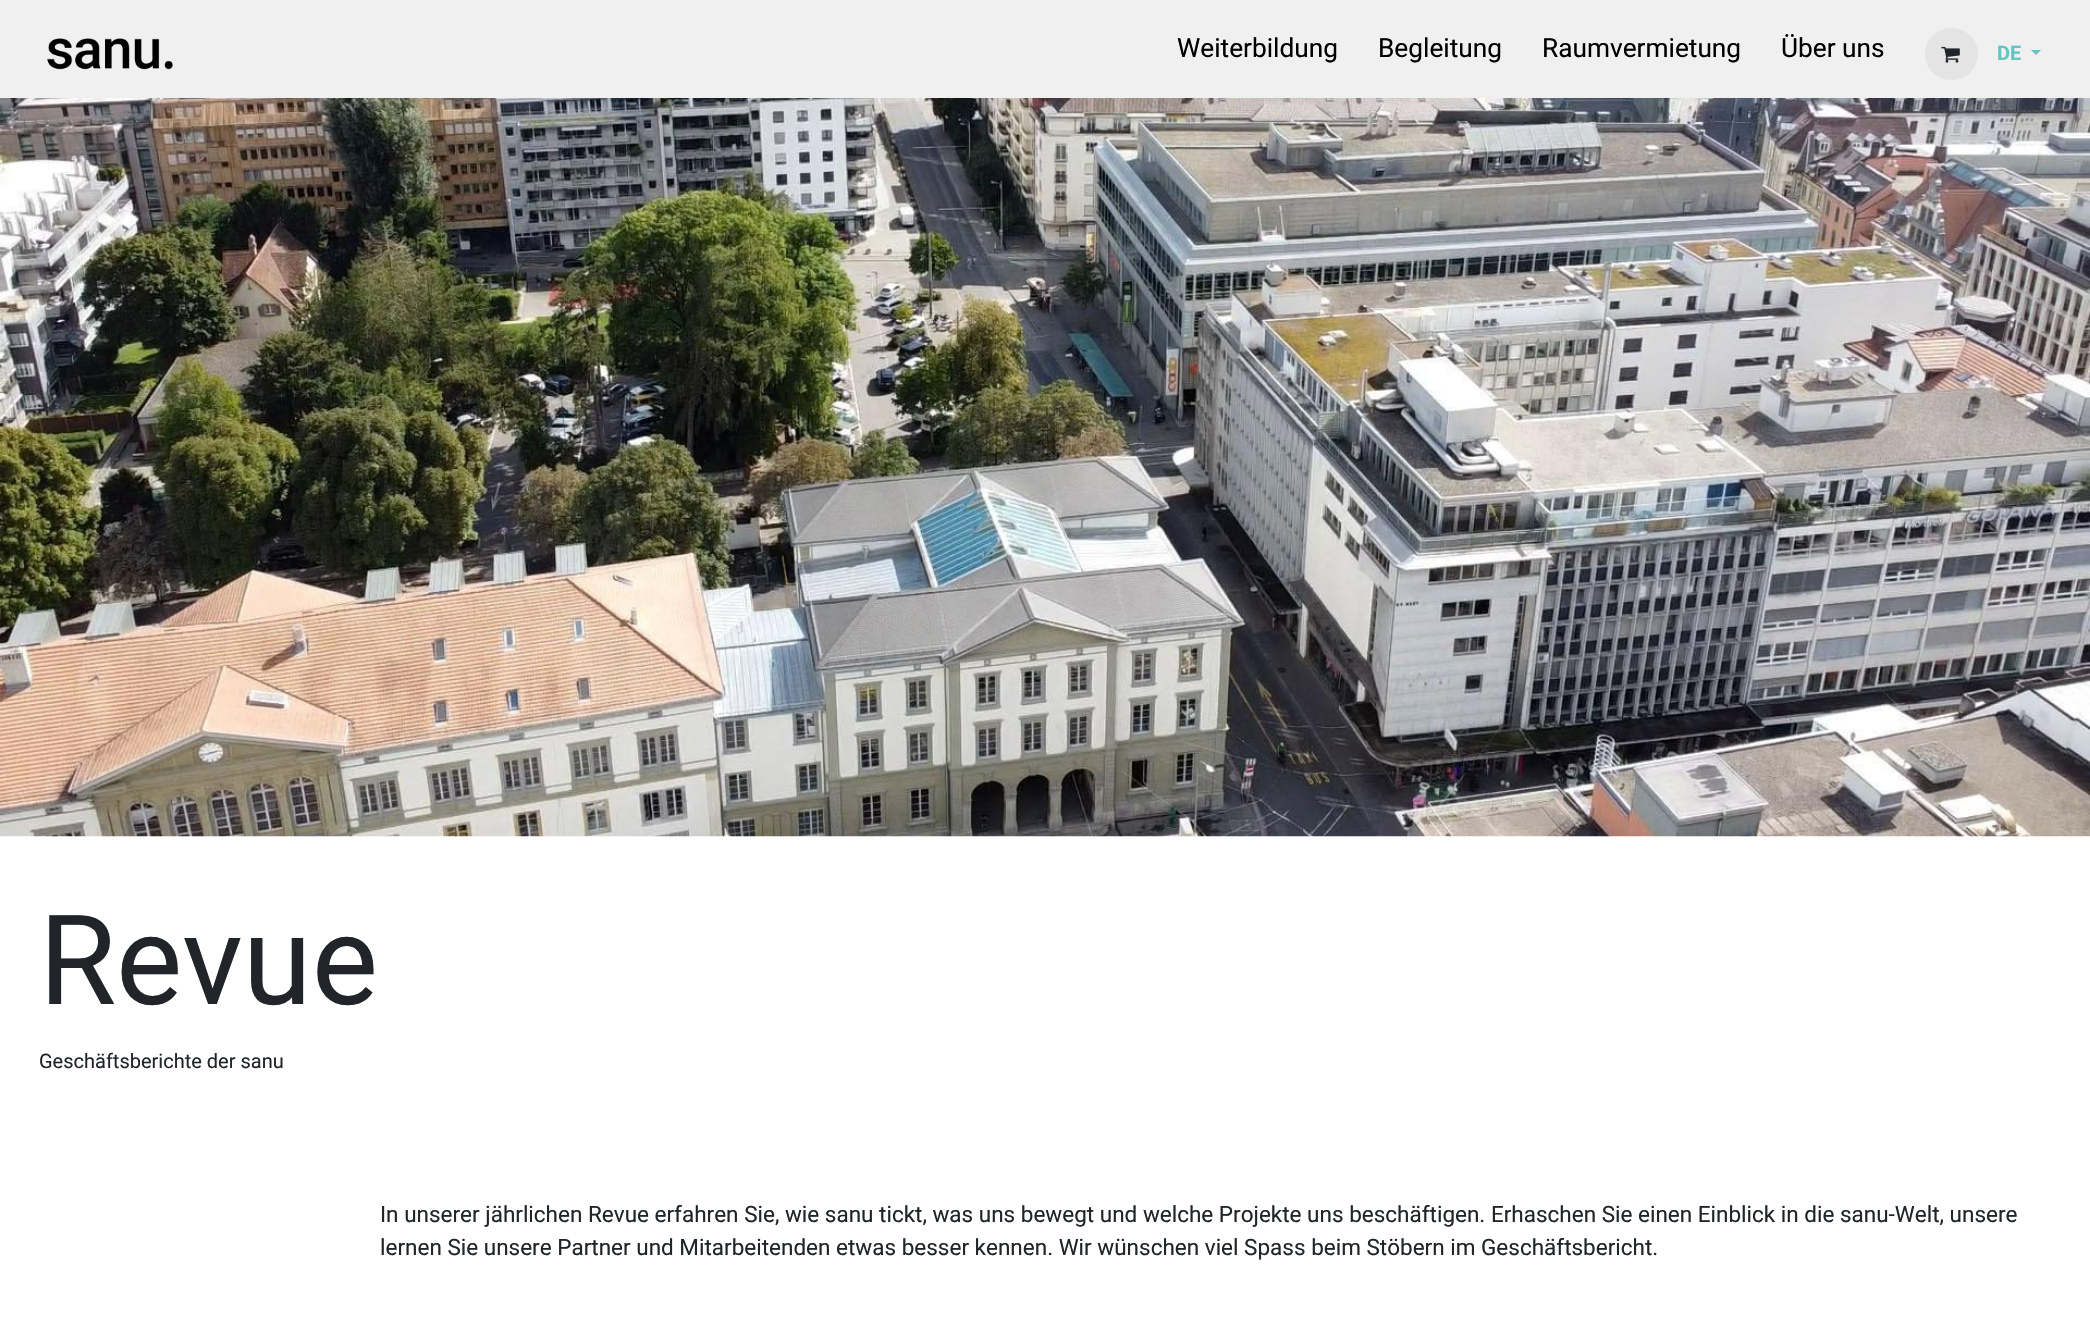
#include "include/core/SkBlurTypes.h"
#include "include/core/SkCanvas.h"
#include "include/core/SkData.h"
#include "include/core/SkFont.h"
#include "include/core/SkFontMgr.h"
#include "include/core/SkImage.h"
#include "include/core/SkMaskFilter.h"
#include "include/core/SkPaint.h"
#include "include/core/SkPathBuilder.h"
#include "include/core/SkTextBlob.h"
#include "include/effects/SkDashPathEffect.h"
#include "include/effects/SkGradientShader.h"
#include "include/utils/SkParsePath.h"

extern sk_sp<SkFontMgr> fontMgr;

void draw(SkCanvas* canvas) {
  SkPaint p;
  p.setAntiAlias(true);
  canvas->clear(SK_ColorWHITE);
  p.setColor(SkColorSetRGB(240, 240, 240));
  canvas->drawRect(SkRect::MakeLTRB(0, 0, 2090, 98), p);
  canvas->drawImageRect(SkImages::DeferredFromEncodedData(SkData::MakeFromFileName("images/1.png")), SkRect::MakeLTRB(47, 38, 173, 70), SkSamplingOptions());
  p.setColor(SkColorSetRGB(228, 228, 228));
  canvas->drawRoundRect(SkRect::MakeLTRB(1925, 28, 1978, 80), 26, 26, p);
  canvas->drawImageRect(SkImages::DeferredFromEncodedData(SkData::MakeFromFileName("images/2.png")), SkRect::MakeLTRB(1941, 46, 1960, 63), SkSamplingOptions());
  p.setColor(SkColorSetRGB(100, 196, 193));
  canvas->drawPath(SkPathBuilder().moveTo(2031, 50).lineTo(2041, 50).lineTo(2036, 55).close().detach(), p);
  canvas->drawImageRect(SkImages::DeferredFromEncodedData(SkData::MakeFromFileName("images/3.png")), SkRect::MakeLTRB(0, 98, 2090, 837), SkSamplingOptions());
  SkFont font1(fontMgr->matchFamilyStyle("Roboto", SkFontStyle::Normal()), 26.25f);
  font1.setSubpixel(true);
  p.setColor(SK_ColorBLACK);
  canvas->drawString("Weiterbildung", 1177, 57, font1, p);
  canvas->drawString("Begleitung", 1378, 57, font1, p);
  canvas->drawString("Raumvermietung", 1542, 57, font1, p);
  canvas->drawString("Über uns", 1781, 57, font1, p);
  SkFont font2(fontMgr->matchFamilyStyle("Roboto", SkFontStyle::Bold()), 20);
  font2.setSubpixel(true);
  p.setColor(SkColorSetRGB(100, 196, 193));
  canvas->drawString("DE", 1997, 60, font2, p);
  SkFont font3(fontMgr->matchFamilyStyle("Roboto", SkFontStyle::Normal()), 125);
  font3.setSubpixel(true);
  p.setColor(SkColorSetRGB(33, 37, 41));
  canvas->drawString("Revue", 39, 1004, font3, p);
  SkFont font4(fontMgr->matchFamilyStyle("Roboto", SkFontStyle::Normal()), 20);
  font4.setSubpixel(true);
  canvas->drawString("Geschäftsberichte der sanu", 39, 1068, font4, p);
  SkFont font5(fontMgr->matchFamilyStyle("Roboto", SkFontStyle::Normal()), 22.5f);
  font5.setSubpixel(true);
  canvas->drawString("In unserer jährlichen Revue erfahren Sie, wie sanu tickt, was uns bewegt und welche Projekte uns beschäftigen. Erhaschen Sie einen Einblick in die sanu-Welt, unsere", 380, 1222, font5, p);
  canvas->drawString("lernen Sie unsere Partner und Mitarbeitenden etwas besser kennen. Wir wünschen viel Spass beim Stöbern im Geschäftsbericht.", 380, 1255, font5, p);
}
